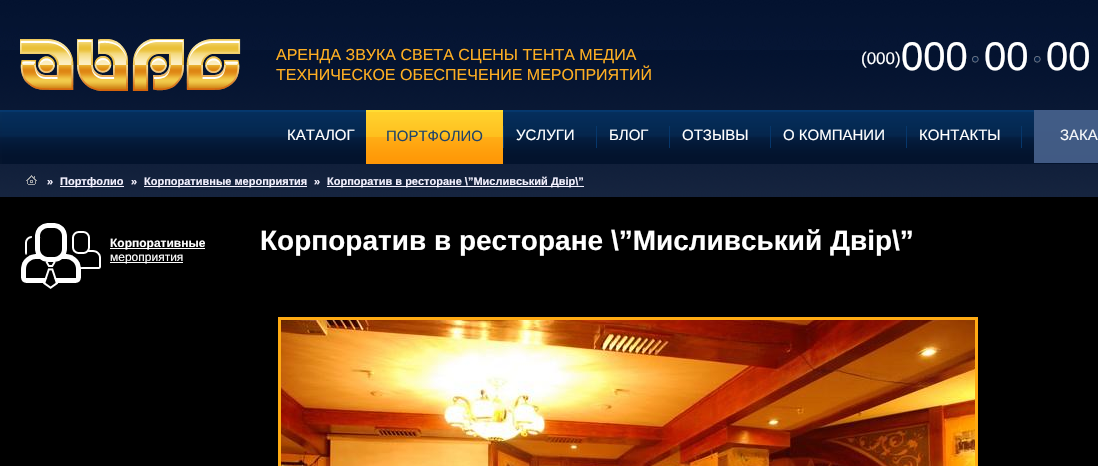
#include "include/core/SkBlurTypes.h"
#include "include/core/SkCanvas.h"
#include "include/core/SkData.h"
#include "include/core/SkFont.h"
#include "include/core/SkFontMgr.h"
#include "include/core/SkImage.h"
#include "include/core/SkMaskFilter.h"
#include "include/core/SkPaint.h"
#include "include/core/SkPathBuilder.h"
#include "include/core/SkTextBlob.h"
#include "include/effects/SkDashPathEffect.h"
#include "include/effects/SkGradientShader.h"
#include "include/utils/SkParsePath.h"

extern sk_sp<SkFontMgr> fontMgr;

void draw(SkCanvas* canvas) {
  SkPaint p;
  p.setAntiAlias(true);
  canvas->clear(SK_ColorWHITE);
  canvas->drawImageRect(SkImages::DeferredFromEncodedData(SkData::MakeFromFileName("images/1.png")), SkRect::MakeLTRB(0, 0, 1098, 197), SkSamplingOptions());
  canvas->drawImageRect(SkImages::DeferredFromEncodedData(SkData::MakeFromFileName("images/2.png")), SkRect::MakeLTRB(20, 39, 241, 91), SkSamplingOptions());
  canvas->drawImageRect(SkImages::DeferredFromEncodedData(SkData::MakeFromFileName("images/3.png")), SkRect::MakeLTRB(972, 56, 979, 63), SkSamplingOptions());
  canvas->drawImageRect(SkImages::DeferredFromEncodedData(SkData::MakeFromFileName("images/4.png")), SkRect::MakeLTRB(1034, 56, 1041, 63), SkSamplingOptions());
  canvas->drawImageRect(SkImages::DeferredFromEncodedData(SkData::MakeFromFileName("images/5.png")), SkRect::MakeLTRB(0, 110, 1098, 164), SkSamplingOptions());
  p.setColor(SkColorSetRGB(6, 55, 108));
  canvas->drawRect(SkRect::MakeLTRB(503, 126, 504, 148), p);
  canvas->drawImageRect(SkImages::DeferredFromEncodedData(SkData::MakeFromFileName("images/6.png")), SkRect::MakeLTRB(366, 110, 503, 164), SkSamplingOptions());
  canvas->drawRect(SkRect::MakeLTRB(596, 126, 597, 148), p);
  canvas->drawRect(SkRect::MakeLTRB(669, 126, 670, 148), p);
  canvas->drawRect(SkRect::MakeLTRB(770, 126, 771, 148), p);
  canvas->drawRect(SkRect::MakeLTRB(906, 126, 907, 148), p);
  canvas->drawRect(SkRect::MakeLTRB(1021, 126, 1022, 148), p);
  p.setColor(SkColorSetARGB(242, 67, 94, 136));
  canvas->drawRect(SkRect::MakeLTRB(1034, 110, 1098, 163), p);
  canvas->drawImageRect(SkImages::DeferredFromEncodedData(SkData::MakeFromFileName("images/7.png")), SkRect::MakeLTRB(26, 175, 37, 185), SkSamplingOptions());
  p.setColor(SkColorSetRGB(244, 242, 255));
  canvas->drawRect(SkRect::MakeLTRB(60, 186, 124, 187), p);
  canvas->drawRect(SkRect::MakeLTRB(144, 186, 307, 187), p);
  canvas->drawRect(SkRect::MakeLTRB(327, 186, 584, 187), p);
  p.setColor(SK_ColorBLACK);
  canvas->drawRect(SkRect::MakeLTRB(0, 197, 1098, 466), p);
  canvas->drawImageRect(SkImages::DeferredFromEncodedData(SkData::MakeFromFileName("images/8.png")), SkRect::MakeLTRB(281, 320, 975, 466), SkSamplingOptions());
  p.setStyle(SkPaint::kStroke_Style);
  p.setStrokeWidth(3);
  p.setColor(SkColorSetRGB(255, 171, 20));
  canvas->drawRect(SkRect::MakeLTRB(279.5f, 318.5f, 976.5f, 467.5f), p);
  canvas->drawImageRect(SkImages::DeferredFromEncodedData(SkData::MakeFromFileName("images/9.png")), SkRect::MakeLTRB(21, 223, 101, 289), SkSamplingOptions());
  p.setStyle(SkPaint::kFill_Style);
  p.setColor(SK_ColorWHITE);
  canvas->drawRect(SkRect::MakeLTRB(110, 248, 205, 249), p);
  canvas->drawRect(SkRect::MakeLTRB(110, 262, 183, 263), p);
  SkFont font1(fontMgr->matchFamilyStyle("Liberation Sans", SkFontStyle::Normal()), 16);
  font1.setSubpixel(true);
  p.setColor(SkColorSetRGB(255, 175, 34));
  canvas->drawString("АРЕНДА ЗВУКА СВЕТА СЦЕНЫ ТЕНТА МЕДИА", 276, 60, font1, p);
  canvas->drawString("ТЕХНИЧЕСКОЕ ОБЕСПЕЧЕНИЕ МЕРОПРИЯТИЙ", 276, 80, font1, p);
  SkFont font2(fontMgr->matchFamilyStyle("Liberation Sans", SkFontStyle::Normal()), 17);
  font2.setSubpixel(true);
  p.setColor(SK_ColorWHITE);
  canvas->drawString("(000)", 861, 64, font2, p);
  SkFont font3(fontMgr->matchFamilyStyle("Liberation Sans", SkFontStyle::Normal()), 40);
  font3.setSubpixel(true);
  canvas->drawString("000", 901, 70, font3, p);
  canvas->drawString("00", 984, 70, font3, p);
  canvas->drawString("00", 1046, 70, font3, p);
  SkFont font4(fontMgr->matchFamilyStyle("Liberation Sans", SkFontStyle::Normal()), 15);
  font4.setSubpixel(true);
  canvas->drawString("КАТАЛОГ", 287, 140, font4, p);
  p.setColor(SkColorSetRGB(33, 68, 105));
  canvas->drawString("ПОРТФОЛИО", 386, 141, font4, p);
  p.setColor(SK_ColorWHITE);
  canvas->drawString("УСЛУГИ", 516, 140, font4, p);
  canvas->drawString("БЛОГ", 609, 140, font4, p);
  canvas->drawString("ОТЗЫВЫ", 682, 140, font4, p);
  canvas->drawString("О КОМПАНИИ", 783, 140, font4, p);
  canvas->drawString("КОНТАКТЫ", 919, 140, font4, p);
  p.setColor(SkColorSetRGB(245, 247, 249));
  canvas->drawString("ЗАКА", 1060, 140, font4, p);
  SkFont font5(fontMgr->matchFamilyStyle("Liberation Sans", SkFontStyle::Bold()), 11);
  font5.setSubpixel(true);
  p.setColor(SkColorSetRGB(244, 242, 255));
  canvas->drawString("»", 47, 185, font5, p);
  canvas->drawString("Портфолио", 60, 185, font5, p);
  canvas->drawString("»", 131, 185, font5, p);
  canvas->drawString("Корпоративные мероприятия", 144, 185, font5, p);
  canvas->drawString("»", 314, 185, font5, p);
  canvas->drawString("Корпоратив в ресторане \\”Мисливський Двір\\”", 327, 185, font5, p);
  SkFont font6(fontMgr->matchFamilyStyle("Liberation Sans", SkFontStyle::Bold()), 12);
  font6.setSubpixel(true);
  p.setColor(SK_ColorWHITE);
  canvas->drawString("Корпоративные", 110, 247, font6, p);
  SkFont font7(fontMgr->matchFamilyStyle("Liberation Sans", SkFontStyle::Normal()), 12);
  font7.setSubpixel(true);
  canvas->drawString("мероприятия", 110, 261, font7, p);
  SkFont font8(fontMgr->matchFamilyStyle("Liberation Sans", SkFontStyle::Bold()), 28);
  font8.setSubpixel(true);
  canvas->drawString("Корпоратив в ресторане \\”Мисливський Двір\\”", 260, 250, font8, p);
}
